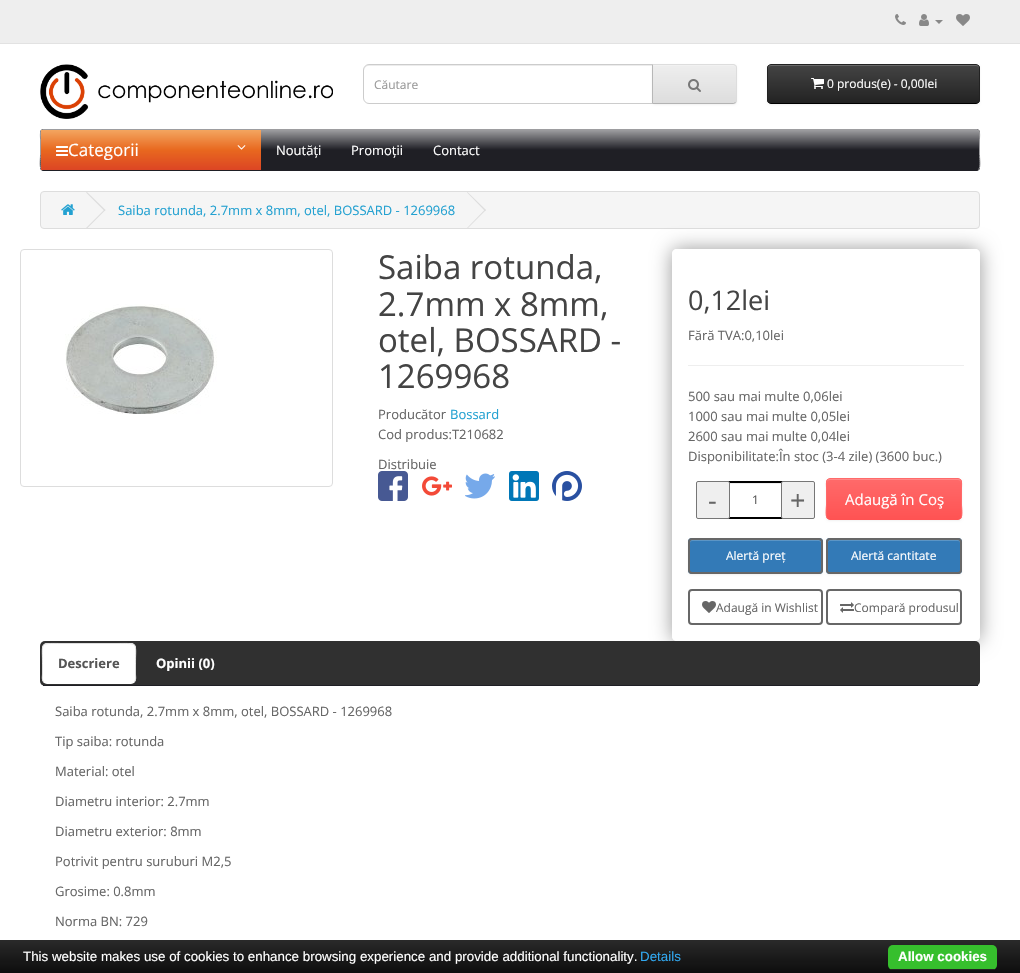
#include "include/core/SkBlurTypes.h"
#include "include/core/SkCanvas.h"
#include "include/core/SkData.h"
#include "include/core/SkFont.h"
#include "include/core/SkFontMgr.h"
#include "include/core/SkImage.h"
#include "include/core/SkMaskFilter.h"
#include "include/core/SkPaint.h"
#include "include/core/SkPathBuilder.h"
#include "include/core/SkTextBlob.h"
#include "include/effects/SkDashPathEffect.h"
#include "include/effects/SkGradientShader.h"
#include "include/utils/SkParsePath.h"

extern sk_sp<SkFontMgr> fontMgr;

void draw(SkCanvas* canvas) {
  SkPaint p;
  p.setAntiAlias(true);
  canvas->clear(SK_ColorWHITE);
  p.setColor(SkColorSetRGB(238, 238, 238));
  canvas->drawRect(SkRect::MakeLTRB(0, 0, 1020, 43), p);
  p.setColor(SkColorSetRGB(226, 226, 226));
  canvas->drawRect(SkRect::MakeLTRB(0, 43, 1020, 44), p);
  canvas->drawImageRect(SkImages::DeferredFromEncodedData(SkData::MakeFromFileName("images/1.png")), SkRect::MakeLTRB(895, 14, 906, 25), SkSamplingOptions());
  canvas->drawImageRect(SkImages::DeferredFromEncodedData(SkData::MakeFromFileName("images/2.png")), SkRect::MakeLTRB(919, 14, 929, 26), SkSamplingOptions());
  p.setColor(SkColorSetRGB(136, 136, 136));
  canvas->drawPath(SkPathBuilder().moveTo(935, 20).lineTo(943, 20).lineTo(939, 24).close().detach(), p);
  canvas->drawImageRect(SkImages::DeferredFromEncodedData(SkData::MakeFromFileName("images/3.png")), SkRect::MakeLTRB(956, 14, 970, 26), SkSamplingOptions());
  canvas->drawImageRect(SkImages::DeferredFromEncodedData(SkData::MakeFromFileName("images/4.png")), SkRect::MakeLTRB(40, 64, 333, 119), SkSamplingOptions());
  p.setColor(SkColorSetRGB(236, 236, 236));
  canvas->drawPath(SkPathBuilder().moveTo(369, 66).lineTo(652, 66).lineTo(652, 65).lineTo(369, 65).cubicTo(366, 65, 364, 67, 364, 70).lineTo(364, 71).cubicTo(364, 68, 366, 66, 369, 66).close().detach(), p);
  p.setStyle(SkPaint::kStroke_Style);
  p.setStrokeWidth(1);
  p.setColor(SkColorSetRGB(204, 204, 204));
  canvas->drawPath(SkPathBuilder().moveTo(369, 64.5f).lineTo(652.5f, 64.5f).lineTo(652.5f, 103.5f).lineTo(369, 103.5f).cubicTo(366, 103.5f, 363.5f, 101, 363.5f, 98).lineTo(363.5f, 70).cubicTo(363.5f, 67, 366, 64.5f, 369, 64.5f).close().detach(), p);
  p.setStyle(SkPaint::kFill_Style);
  p.setColor(SkColorSetARGB(13, 0, 0, 0));
  p.setMaskFilter(SkMaskFilter::MakeBlur(kNormal_SkBlurStyle, 1));
  canvas->drawRoundRect(SkRect::MakeLTRB(652, 65, 737, 105), 4, 4, p);
  p.setMaskFilter(nullptr);
  p.setColor(SkColorSetRGB(231, 231, 231));
  canvas->drawPath(SkPathBuilder().moveTo(652, 64).lineTo(733, 64).cubicTo(735, 64, 737, 66, 737, 68).lineTo(737, 100).cubicTo(737, 102, 735, 104, 733, 104).lineTo(652, 104).close().detach(), p);
  canvas->save();
  canvas->clipPath(SkPathBuilder().moveTo(652, 64).lineTo(733, 64).cubicTo(735, 64, 737, 66, 737, 68).lineTo(737, 100).cubicTo(737, 102, 735, 104, 733, 104).lineTo(652, 104).close().detach(), true);
  {
    const SkColor colors[] = {SkColorSetRGB(238, 238, 238), SkColorSetRGB(221, 221, 221)};
    const float stops[] = {0, 1};
    const SkPoint ends[] = {{695, 65}, {695, 103}};
    p.setShader(SkGradientShader::MakeLinear(ends, colors, stops, 2, SkTileMode::kClamp));
    p.setAlpha(255);
  }
  canvas->drawRect(SkRect::MakeLTRB(653, 65, 737, 103), p);
  canvas->restore();
  p.setShader(nullptr);
  p.setColor(SkColorSetRGB(241, 241, 241));
  canvas->drawPath(SkPathBuilder().moveTo(653, 66).lineTo(733, 66).cubicTo(735, 66, 736, 67, 736, 69).lineTo(736, 68).cubicTo(736, 66, 735, 65, 733, 65).lineTo(653, 65).close().detach(), p);
  p.setColor(SkColorSetRGB(221, 221, 221));
  canvas->drawPath(SkPathBuilder().moveTo(652, 64).lineTo(653, 65).lineTo(734, 65).lineTo(735, 66).lineTo(736, 65).lineTo(733, 64).close().detach(), p);
  canvas->drawPath(SkPathBuilder().moveTo(737, 100).lineTo(737, 68).cubicTo(737, 67, 736.5f, 66, 736, 65).lineTo(735, 66).cubicTo(736, 66, 736, 67, 736, 68).lineTo(736, 100).cubicTo(736, 101, 736, 102, 735, 102).lineTo(736, 103).cubicTo(736.5f, 102, 737, 101, 737, 100).close().detach(), p);
  p.setColor(SkColorSetRGB(179, 179, 179));
  canvas->drawPath(SkPathBuilder().moveTo(733, 104).lineTo(736, 103).lineTo(735, 102).lineTo(734, 103).lineTo(653, 103).lineTo(652, 104).close().detach(), p);
  p.setColor(SkColorSetRGB(183, 183, 183));
  canvas->drawPath(SkPathBuilder().moveTo(652, 64).lineTo(652, 104).lineTo(653, 103).lineTo(653, 65).close().detach(), p);
  canvas->drawImageRect(SkImages::DeferredFromEncodedData(SkData::MakeFromFileName("images/5.png")), SkRect::MakeLTRB(688, 79, 701, 92), SkSamplingOptions());
  p.setColor(SkColorSetARGB(13, 0, 0, 0));
  p.setMaskFilter(SkMaskFilter::MakeBlur(kNormal_SkBlurStyle, 1));
  canvas->drawRoundRect(SkRect::MakeLTRB(767, 65, 980, 105), 4, 4, p);
  p.setMaskFilter(nullptr);
  canvas->save();
  canvas->clipPath(SkPathBuilder().moveTo(771, 64).lineTo(976, 64).cubicTo(978, 64, 980, 66, 980, 68).lineTo(980, 100).cubicTo(980, 102, 978, 104, 976, 104).lineTo(771, 104).cubicTo(769, 104, 767, 102, 767, 100).lineTo(767, 68).cubicTo(767, 66, 769, 64, 771, 64).close().detach(), true);
  {
    const SkColor colors[] = {SkColorSetRGB(68, 68, 68), SkColorSetRGB(34, 34, 34)};
    const float stops[] = {0, 1};
    const SkPoint ends[] = {{874, 65}, {874, 103}};
    p.setShader(SkGradientShader::MakeLinear(ends, colors, stops, 2, SkTileMode::kClamp));
    p.setAlpha(255);
  }
  canvas->drawRect(SkRect::MakeLTRB(767, 65, 980, 103), p);
  canvas->restore();
  p.setShader(nullptr);
  p.setColor(SkColorSetRGB(105, 105, 105));
  canvas->drawPath(SkPathBuilder().moveTo(771, 66).lineTo(976, 66).cubicTo(978, 66, 979, 67, 979, 69).lineTo(979, 68).cubicTo(979, 66, 978, 65, 976, 65).lineTo(771, 65).cubicTo(769, 65, 768, 66, 768, 68).lineTo(768, 69).cubicTo(768, 67, 769, 66, 771, 66).close().detach(), p);
  p.setStyle(SkPaint::kStroke_Style);
  p.setColor(SK_ColorBLACK);
  canvas->drawPath(SkPathBuilder().moveTo(978.5f, 102.5f).cubicTo(978, 103, 977, 103.5f, 976, 103.5f).lineTo(771, 103.5f).cubicTo(770, 103.5f, 769, 103, 768.5f, 102.5f).detach(), p);
  p.setColor(SkColorSetRGB(34, 34, 34));
  canvas->drawPath(SkPathBuilder().moveTo(768.5f, 102.5f).cubicTo(768, 102, 767.5f, 101, 767.5f, 100).lineTo(767.5f, 68).cubicTo(767.5f, 67, 768, 66, 768.5f, 65.5f).cubicTo(769, 65, 770, 64.5f, 771, 64.5f).lineTo(976, 64.5f).cubicTo(977, 64.5f, 978, 65, 978.5f, 65.5f).cubicTo(979, 66, 979.5f, 67, 979.5f, 68).lineTo(979.5f, 100).cubicTo(979.5f, 101, 979, 102, 978.5f, 102.5f).detach(), p);
  canvas->drawImageRect(SkImages::DeferredFromEncodedData(SkData::MakeFromFileName("images/6.png")), SkRect::MakeLTRB(811, 78, 824, 89), SkSamplingOptions());
  p.setStyle(SkPaint::kFill_Style);
  p.setColor(SkColorSetRGB(31, 31, 37));
  canvas->drawRoundRect(SkRect::MakeLTRB(40, 129, 980, 171), 4, 4, p);
  canvas->save();
  canvas->clipPath(SkPathBuilder().moveTo(44, 129).lineTo(976, 129).cubicTo(978, 129, 980, 131, 980, 133).lineTo(980, 167).cubicTo(980, 169, 978, 171, 976, 171).lineTo(44, 171).cubicTo(42, 171, 40, 169, 40, 167).lineTo(40, 133).cubicTo(40, 131, 42, 129, 44, 129).close().detach(), true);
  {
    const SkColor colors[] = {SkColorSetRGB(157, 157, 160), SkColorSetRGB(31, 31, 37), SkColorSetRGB(31, 31, 37)};
    const float stops[] = {0, 0.5f, 1};
    const SkPoint ends[] = {{510, 130}, {510, 170}};
    p.setShader(SkGradientShader::MakeLinear(ends, colors, stops, 3, SkTileMode::kClamp));
    p.setAlpha(255);
  }
  canvas->drawRect(SkRect::MakeLTRB(40, 130, 980, 170), p);
  canvas->restore();
  p.setStyle(SkPaint::kStroke_Style);
  p.setShader(nullptr);
  p.setColor(SkColorSetRGB(31, 31, 37));
  canvas->drawPath(SkPathBuilder().moveTo(978.5f, 169.5f).lineTo(976, 170.5f).lineTo(44, 170.5f).lineTo(41.5f, 169.5f).detach(), p);
  p.setColor(SkColorSetRGB(157, 157, 160));
  canvas->drawPath(SkPathBuilder().moveTo(41.5f, 169.5f).cubicTo(39, 167, 40.5f, 158.5f, 40.5f, 155.5f).lineTo(40.5f, 138.5f).cubicTo(40.5f, 136, 39.5f, 131, 43, 129.5f).lineTo(977, 129.5f).cubicTo(980.5f, 131, 979.5f, 136, 979.5f, 138.5f).lineTo(979.5f, 155.5f).cubicTo(979.5f, 158.5f, 981, 167, 978.5f, 169.5f).detach(), p);
  p.setStyle(SkPaint::kFill_Style);
  {
    const SkColor colors[] = {SkColorSetRGB(243, 166, 96), SkColorSetRGB(232, 104, 31), SkColorSetRGB(220, 69, 36)};
    const float stops[] = {0, 0.5f, 1};
    const SkPoint ends[] = {{151, 130}, {151, 170}};
    p.setShader(SkGradientShader::MakeLinear(ends, colors, stops, 3, SkTileMode::kClamp));
    p.setAlpha(255);
  }
  canvas->drawRect(SkRect::MakeLTRB(41, 130, 261, 170), p);
  canvas->drawImageRect(SkImages::DeferredFromEncodedData(SkData::MakeFromFileName("images/7.png")), SkRect::MakeLTRB(56, 146, 68, 156), SkSamplingOptions());
  canvas->drawImageRect(SkImages::DeferredFromEncodedData(SkData::MakeFromFileName("images/8.png")), SkRect::MakeLTRB(237, 145, 246, 150), SkSamplingOptions());
  p.setShader(nullptr);
  p.setColor(SkColorSetRGB(245, 245, 245));
  canvas->drawRoundRect(SkRect::MakeLTRB(40.5f, 191.5f, 979.5f, 228.5f), 3.5f, 3.5f, p);
  p.setStyle(SkPaint::kStroke_Style);
  p.setColor(SkColorSetRGB(221, 221, 221));
  canvas->drawRoundRect(SkRect::MakeLTRB(40.5f, 191.5f, 979.5f, 228.5f), 3.5f, 3.5f, p);
  canvas->drawImageRect(SkImages::DeferredFromEncodedData(SkData::MakeFromFileName("images/9.png")), SkRect::MakeLTRB(61, 204, 75, 215), SkSamplingOptions());
  p.setStyle(SkPaint::kFill_Style);
  canvas->drawPath(SkPathBuilder().moveTo(86, 192.5f).lineTo(87, 192).lineTo(105.5f, 210).lineTo(104.5f, 211).close().detach(), p);
  canvas->drawPath(SkPathBuilder().moveTo(86, 228).lineTo(104.5f, 209.5f).lineTo(105.5f, 210).lineTo(87, 228.5f).close().detach(), p);
  canvas->drawPath(SkPathBuilder().moveTo(467, 192.5f).lineTo(467.5f, 192).lineTo(486, 210).lineTo(485, 211).close().detach(), p);
  canvas->drawPath(SkPathBuilder().moveTo(467, 228).lineTo(485, 209.5f).lineTo(486, 210).lineTo(467.5f, 228.5f).close().detach(), p);
  p.setStyle(SkPaint::kStroke_Style);
  canvas->drawRoundRect(SkRect::MakeLTRB(20.5f, 249.5f, 332.5f, 486.5f), 3.5f, 3.5f, p);
  canvas->drawImageRect(SkImages::DeferredFromEncodedData(SkData::MakeFromFileName("images/10.png")), SkRect::MakeLTRB(65, 304, 217, 414), SkSamplingOptions());
  canvas->drawImageRect(SkImages::DeferredFromEncodedData(SkData::MakeFromFileName("images/11.png")), SkRect::MakeLTRB(378, 471, 408, 501), SkSamplingOptions());
  canvas->drawImageRect(SkImages::DeferredFromEncodedData(SkData::MakeFromFileName("images/12.png")), SkRect::MakeLTRB(422, 476, 452, 496), SkSamplingOptions());
  canvas->drawImageRect(SkImages::DeferredFromEncodedData(SkData::MakeFromFileName("images/13.png")), SkRect::MakeLTRB(465, 473, 495, 499), SkSamplingOptions());
  canvas->drawImageRect(SkImages::DeferredFromEncodedData(SkData::MakeFromFileName("images/14.png")), SkRect::MakeLTRB(509, 471, 539, 501), SkSamplingOptions());
  canvas->drawImageRect(SkImages::DeferredFromEncodedData(SkData::MakeFromFileName("images/15.png")), SkRect::MakeLTRB(552, 471, 582, 501), SkSamplingOptions());
  canvas->save();
  canvas->clipPath(SkPathBuilder(SkPathFillType::kEvenOdd).moveTo(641, 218).lineTo(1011, 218).lineTo(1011, 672).lineTo(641, 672).close().moveTo(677, 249).lineTo(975, 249).cubicTo(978, 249, 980, 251, 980, 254).lineTo(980, 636).cubicTo(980, 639, 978, 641, 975, 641).lineTo(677, 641).cubicTo(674, 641, 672, 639, 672, 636).lineTo(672, 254).cubicTo(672, 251, 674, 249, 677, 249).close().detach(), true);
  p.setStyle(SkPaint::kFill_Style);
  p.setColor(SkColorSetRGB(153, 153, 153));
  p.setMaskFilter(SkMaskFilter::MakeBlur(kNormal_SkBlurStyle, 10));
  canvas->drawRoundRect(SkRect::MakeLTRB(672, 249, 980, 641), 5, 5, p);
  p.setMaskFilter(nullptr);
  canvas->restore();
  p.setStyle(SkPaint::kStroke_Style);
  p.setStrokeWidth(2);
  p.setColor(SK_ColorWHITE);
  canvas->drawRoundRect(SkRect::MakeLTRB(673, 250, 979, 640), 4, 4, p);
  p.setStyle(SkPaint::kFill_Style);
  p.setColor(SkColorSetRGB(238, 238, 238));
  canvas->drawRect(SkRect::MakeLTRB(688, 365, 964, 366), p);
  p.setColor(SkColorSetRGB(236, 236, 236));
  canvas->drawRect(SkRect::MakeLTRB(724, 483, 787, 484), p);
  p.setStyle(SkPaint::kStroke_Style);
  p.setColor(SK_ColorBLACK);
  canvas->drawRect(SkRect::MakeLTRB(723, 482, 788, 518), p);
  p.setStyle(SkPaint::kFill_Style);
  p.setColor(SkColorSetRGB(239, 239, 239));
  canvas->drawRoundRect(SkRect::MakeLTRB(696.5f, 481.5f, 729.5f, 518.5f), 1.5f, 1.5f, p);
  p.setStyle(SkPaint::kStroke_Style);
  p.setStrokeWidth(1);
  p.setColor(SkColorSetRGB(118, 118, 118));
  canvas->drawRoundRect(SkRect::MakeLTRB(696.5f, 481.5f, 729.5f, 518.5f), 1.5f, 1.5f, p);
  p.setStyle(SkPaint::kFill_Style);
  p.setColor(SkColorSetRGB(239, 239, 239));
  canvas->drawRoundRect(SkRect::MakeLTRB(781.5f, 481.5f, 814.5f, 518.5f), 1.5f, 1.5f, p);
  p.setStyle(SkPaint::kStroke_Style);
  p.setColor(SkColorSetRGB(118, 118, 118));
  canvas->drawRoundRect(SkRect::MakeLTRB(781.5f, 481.5f, 814.5f, 518.5f), 1.5f, 1.5f, p);
  p.setStyle(SkPaint::kFill_Style);
  p.setColor(SkColorSetARGB(13, 0, 0, 0));
  p.setMaskFilter(SkMaskFilter::MakeBlur(kNormal_SkBlurStyle, 1));
  canvas->drawRoundRect(SkRect::MakeLTRB(826, 479, 962, 521), 4, 4, p);
  p.setMaskFilter(nullptr);
  canvas->save();
  canvas->clipPath(SkPathBuilder().moveTo(830, 478).lineTo(958, 478).cubicTo(960, 478, 962, 480, 962, 482).lineTo(962, 516).cubicTo(962, 518, 960, 520, 958, 520).lineTo(830, 520).cubicTo(828, 520, 826, 518, 826, 516).lineTo(826, 482).cubicTo(826, 480, 828, 478, 830, 478).close().detach(), true);
  {
    const SkColor colors[] = {SkColorSetRGB(255, 106, 106), SkColorSetRGB(255, 83, 83)};
    const float stops[] = {0, 1};
    const SkPoint ends[] = {{894, 479}, {894, 519}};
    p.setShader(SkGradientShader::MakeLinear(ends, colors, stops, 2, SkTileMode::kClamp));
    p.setAlpha(255);
  }
  canvas->drawRect(SkRect::MakeLTRB(826, 479, 962, 519), p);
  canvas->restore();
  p.setShader(nullptr);
  p.setColor(SkColorSetRGB(255, 136, 136));
  canvas->drawPath(SkPathBuilder().moveTo(830, 480).lineTo(958, 480).cubicTo(960, 480, 961, 481, 961, 483).cubicTo(961, 481, 961, 479, 959, 479).lineTo(829, 479).cubicTo(827, 479, 827, 481, 827, 483).cubicTo(827, 481, 828, 480, 830, 480).close().detach(), p);
  p.setStyle(SkPaint::kStroke_Style);
  p.setColor(SkColorSetRGB(255, 83, 83));
  canvas->drawPath(SkPathBuilder().moveTo(960.5f, 518.5f).cubicTo(960, 519, 959, 519.5f, 958, 519.5f).lineTo(830, 519.5f).cubicTo(829, 519.5f, 828, 519, 827.5f, 518.5f).detach(), p);
  p.setColor(SkColorSetRGB(255, 106, 106));
  canvas->drawPath(SkPathBuilder().moveTo(827.5f, 518.5f).cubicTo(825, 516, 826.5f, 507.5f, 826.5f, 504.5f).lineTo(826.5f, 487.5f).cubicTo(826.5f, 485, 825.5f, 478.5f, 830, 478.5f).lineTo(958, 478.5f).cubicTo(962.5f, 478.5f, 961.5f, 485, 961.5f, 487.5f).lineTo(961.5f, 504.5f).cubicTo(961.5f, 507.5f, 963, 516, 960.5f, 518.5f).detach(), p);
  p.setStyle(SkPaint::kFill_Style);
  p.setColor(SkColorSetARGB(13, 0, 0, 0));
  p.setMaskFilter(SkMaskFilter::MakeBlur(kNormal_SkBlurStyle, 1));
  canvas->drawRoundRect(SkRect::MakeLTRB(688, 539, 823, 575), 4, 4, p);
  p.setMaskFilter(nullptr);
  p.setColor(SkColorSetRGB(51, 122, 183));
  canvas->drawRoundRect(SkRect::MakeLTRB(688, 538, 823, 574), 4, 4, p);
  p.setColor(SkColorSetRGB(92, 149, 197));
  canvas->drawPath(SkPathBuilder().moveTo(692, 541).lineTo(819, 541).cubicTo(820, 541, 821, 542, 821, 543).cubicTo(821, 542, 821, 540, 819, 540).lineTo(692, 540).cubicTo(690, 540, 690, 542, 690, 543).cubicTo(690, 542, 691, 541, 692, 541).close().detach(), p);
  p.setStyle(SkPaint::kStroke_Style);
  p.setStrokeWidth(2);
  p.setColor(SkColorSetRGB(103, 103, 103));
  canvas->drawRoundRect(SkRect::MakeLTRB(689, 539, 822, 573), 3, 3, p);
  p.setStyle(SkPaint::kFill_Style);
  p.setColor(SkColorSetARGB(13, 0, 0, 0));
  p.setMaskFilter(SkMaskFilter::MakeBlur(kNormal_SkBlurStyle, 1));
  canvas->drawRoundRect(SkRect::MakeLTRB(826, 539, 962, 575), 4, 4, p);
  p.setMaskFilter(nullptr);
  p.setColor(SkColorSetRGB(51, 122, 183));
  canvas->drawRoundRect(SkRect::MakeLTRB(826, 538, 962, 574), 4, 4, p);
  p.setColor(SkColorSetRGB(92, 149, 197));
  canvas->drawPath(SkPathBuilder().moveTo(830, 541).lineTo(958, 541).cubicTo(959, 541, 960, 542, 960, 543).cubicTo(960, 542, 960, 540, 958, 540).lineTo(830, 540).cubicTo(828, 540, 828, 542, 828, 543).cubicTo(828, 542, 829, 541, 830, 541).close().detach(), p);
  p.setStyle(SkPaint::kStroke_Style);
  p.setColor(SkColorSetRGB(103, 103, 103));
  canvas->drawRoundRect(SkRect::MakeLTRB(827, 539, 961, 573), 3, 3, p);
  canvas->drawRoundRect(SkRect::MakeLTRB(689, 590, 822, 624), 3, 3, p);
  canvas->drawImageRect(SkImages::DeferredFromEncodedData(SkData::MakeFromFileName("images/16.png")), SkRect::MakeLTRB(702, 601, 716, 613), SkSamplingOptions());
  canvas->drawRoundRect(SkRect::MakeLTRB(827, 590, 961, 624), 3, 3, p);
  canvas->drawImageRect(SkImages::DeferredFromEncodedData(SkData::MakeFromFileName("images/17.png")), SkRect::MakeLTRB(840, 602, 854, 613), SkSamplingOptions());
  p.setStyle(SkPaint::kFill_Style);
  p.setColor(SkColorSetRGB(48, 48, 48));
  canvas->drawRoundRect(SkRect::MakeLTRB(40, 641, 980, 686), 5, 5, p);
  p.setColor(SkColorSetRGB(31, 31, 37));
  canvas->drawRect(SkRect::MakeLTRB(43, 685, 978, 686), p);
  p.setColor(SK_ColorWHITE);
  canvas->drawRoundRect(SkRect::MakeLTRB(42, 643, 136, 684), 5, 5, p);
  p.setStyle(SkPaint::kStroke_Style);
  p.setStrokeWidth(1);
  p.setColor(SkColorSetRGB(221, 221, 221));
  canvas->drawPath(SkPathBuilder().moveTo(44, 682).cubicTo(41.5f, 680, 42.5f, 676.5f, 42.5f, 674).lineTo(42.5f, 663.5f).cubicTo(42.5f, 641.5f, 39, 643.5f, 61, 643.5f).lineTo(117, 643.5f).cubicTo(139, 643.5f, 135.5f, 641.5f, 135.5f, 663.5f).lineTo(135.5f, 674).cubicTo(135.5f, 676.5f, 136.5f, 680, 134, 682).detach(), p);
  p.setStyle(SkPaint::kFill_Style);
  {
    const SkColor colors[] = {SkColorSetARGB(242, 30, 30, 30), SkColorSetARGB(242, 0, 0, 0)};
    const float stops[] = {0, 1};
    const SkPoint ends[] = {{510, 940}, {510, 973}};
    p.setShader(SkGradientShader::MakeLinear(ends, colors, stops, 2, SkTileMode::kClamp));
    p.setAlpha(255);
  }
  canvas->drawRect(SkRect::MakeLTRB(0, 940, 1020, 973), p);
  p.setShader(nullptr);
  p.setColor(SkColorSetRGB(54, 191, 45));
  canvas->drawRoundRect(SkRect::MakeLTRB(888, 945, 997, 970), 5, 5, p);
  p.setColor(SkColorSetRGB(34, 34, 34));
  canvas->drawRect(SkRect::MakeLTRB(891, 969, 995, 970), p);
  SkFont font1(fontMgr->matchFamilyStyle("Open Sans", SkFontStyle::Normal()), 12);
  font1.setSubpixel(true);
  p.setColor(SkColorSetRGB(153, 153, 153));
  canvas->drawString("Căutare", 374, 89, font1, p);
  p.setColor(SK_ColorWHITE);
  canvas->drawString("0 produs(e) - 0,00lei", 827, 88, font1, p);
  SkFont font2(fontMgr->matchFamilyStyle("Open Sans", SkFontStyle::Normal()), 17);
  font2.setSubpixel(true);
  canvas->drawString("Categorii", 68, 156, font2, p);
  SkFont font3(fontMgr->matchFamilyStyle("Open Sans", SkFontStyle::Normal()), 13);
  font3.setSubpixel(true);
  canvas->drawString("Noutăți", 276, 155, font3, p);
  canvas->drawString("Promoții", 351, 155, font3, p);
  canvas->drawString("Contact", 433, 155, font3, p);
  p.setColor(SkColorSetRGB(35, 161, 209));
  canvas->drawString("Saiba rotunda, 2.7mm x 8mm, otel, BOSSARD - 1269968", 118, 215, font3, p);
  SkFont font4(fontMgr->matchFamilyStyle("Open Sans", SkFontStyle::Normal()), 33);
  font4.setSubpixel(true);
  p.setColor(SkColorSetRGB(68, 68, 68));
  canvas->drawString("Saiba rotunda,", 378, 279, font4, p);
  canvas->drawString("2.7mm x 8mm,", 378, 316, font4, p);
  canvas->drawString("otel, BOSSARD -", 378, 352, font4, p);
  canvas->drawString("1269968", 378, 388, font4, p);
  p.setColor(SkColorSetRGB(102, 102, 102));
  canvas->drawString("Producător", 378, 419, font3, p);
  p.setColor(SkColorSetRGB(35, 161, 209));
  canvas->drawString("Bossard", 450, 419, font3, p);
  p.setColor(SkColorSetRGB(102, 102, 102));
  canvas->drawString("Cod produs:T210682", 378, 439, font3, p);
  canvas->drawString("Distribuie", 378, 469, font3, p);
  SkFont font5(fontMgr->matchFamilyStyle("Open Sans", SkFontStyle::Normal()), 27);
  font5.setSubpixel(true);
  p.setColor(SkColorSetRGB(68, 68, 68));
  canvas->drawString("0,12lei", 688, 310, font5, p);
  p.setColor(SkColorSetRGB(102, 102, 102));
  canvas->drawString("Fără TVA:0,10lei", 688, 340, font3, p);
  canvas->drawString("500 sau mai multe 0,06lei", 688, 401, font3, p);
  canvas->drawString("1000 sau mai multe 0,05lei", 688, 421, font3, p);
  canvas->drawString("2600 sau mai multe 0,04lei", 688, 441, font3, p);
  canvas->drawString("Disponibilitate:În stoc (3-4 zile) (3600 buc.)", 688, 461, font3, p);
  canvas->drawString("-", 708, 510, font5, p);
  p.setColor(SkColorSetRGB(85, 85, 85));
  canvas->drawString("1", 752, 504, font1, p);
  p.setColor(SkColorSetRGB(102, 102, 102));
  canvas->drawString("+", 790, 510, font5, p);
  SkFont font6(fontMgr->matchFamilyStyle("Open Sans", SkFontStyle::Normal()), 15);
  font6.setSubpixel(true);
  p.setColor(SK_ColorWHITE);
  canvas->drawString("Adaugă în Coş", 845, 505, font6, p);
  canvas->drawString("Alertă preț", 726, 560, font1, p);
  canvas->drawString("Alertă cantitate", 851, 560, font1, p);
  p.setColor(SkColorSetRGB(102, 102, 102));
  canvas->drawString("Adaugă in Wishlist", 716, 612, font1, p);
  canvas->drawString("Compară produsul", 854, 612, font1, p);
  SkFont font7(fontMgr->matchFamilyStyle("Open Sans", SkFontStyle::Bold()), 13);
  font7.setSubpixel(true);
  p.setColor(SkColorSetRGB(85, 85, 85));
  canvas->drawString("Descriere", 58, 668, font7, p);
  p.setColor(SK_ColorWHITE);
  canvas->drawString("Opinii (0)", 156, 668, font7, p);
  p.setColor(SkColorSetRGB(102, 102, 102));
  canvas->drawString("Saiba rotunda, 2.7mm x 8mm, otel, BOSSARD - 1269968", 55, 716, font3, p);
  canvas->drawString("Tip saiba: rotunda", 55, 746, font3, p);
  canvas->drawString("Material: otel", 55, 776, font3, p);
  canvas->drawString("Diametru interior: 2.7mm", 55, 806, font3, p);
  canvas->drawString("Diametru exterior: 8mm", 55, 836, font3, p);
  canvas->drawString("Potrivit pentru suruburi M2,5", 55, 866, font3, p);
  canvas->drawString("Grosime: 0.8mm", 55, 896, font3, p);
  canvas->drawString("Norma BN: 729", 55, 926, font3, p);
  SkFont font8(fontMgr->matchFamilyStyle("Liberation Sans", SkFontStyle::Normal()), 13.35f);
  font8.setSubpixel(true);
  p.setColor(SK_ColorWHITE);
  canvas->drawString("This website makes use of cookies to enhance browsing experience and provide additional functionality.", 23, 961, font8, p);
  p.setColor(SkColorSetRGB(49, 168, 240));
  canvas->drawString("Details", 640, 961, font8, p);
  SkFont font9(fontMgr->matchFamilyStyle("Liberation Sans", SkFontStyle::Bold()), 13.35f);
  font9.setSubpixel(true);
  p.setColor(SK_ColorWHITE);
  canvas->drawString("Allow cookies", 898, 961, font9, p);
}
